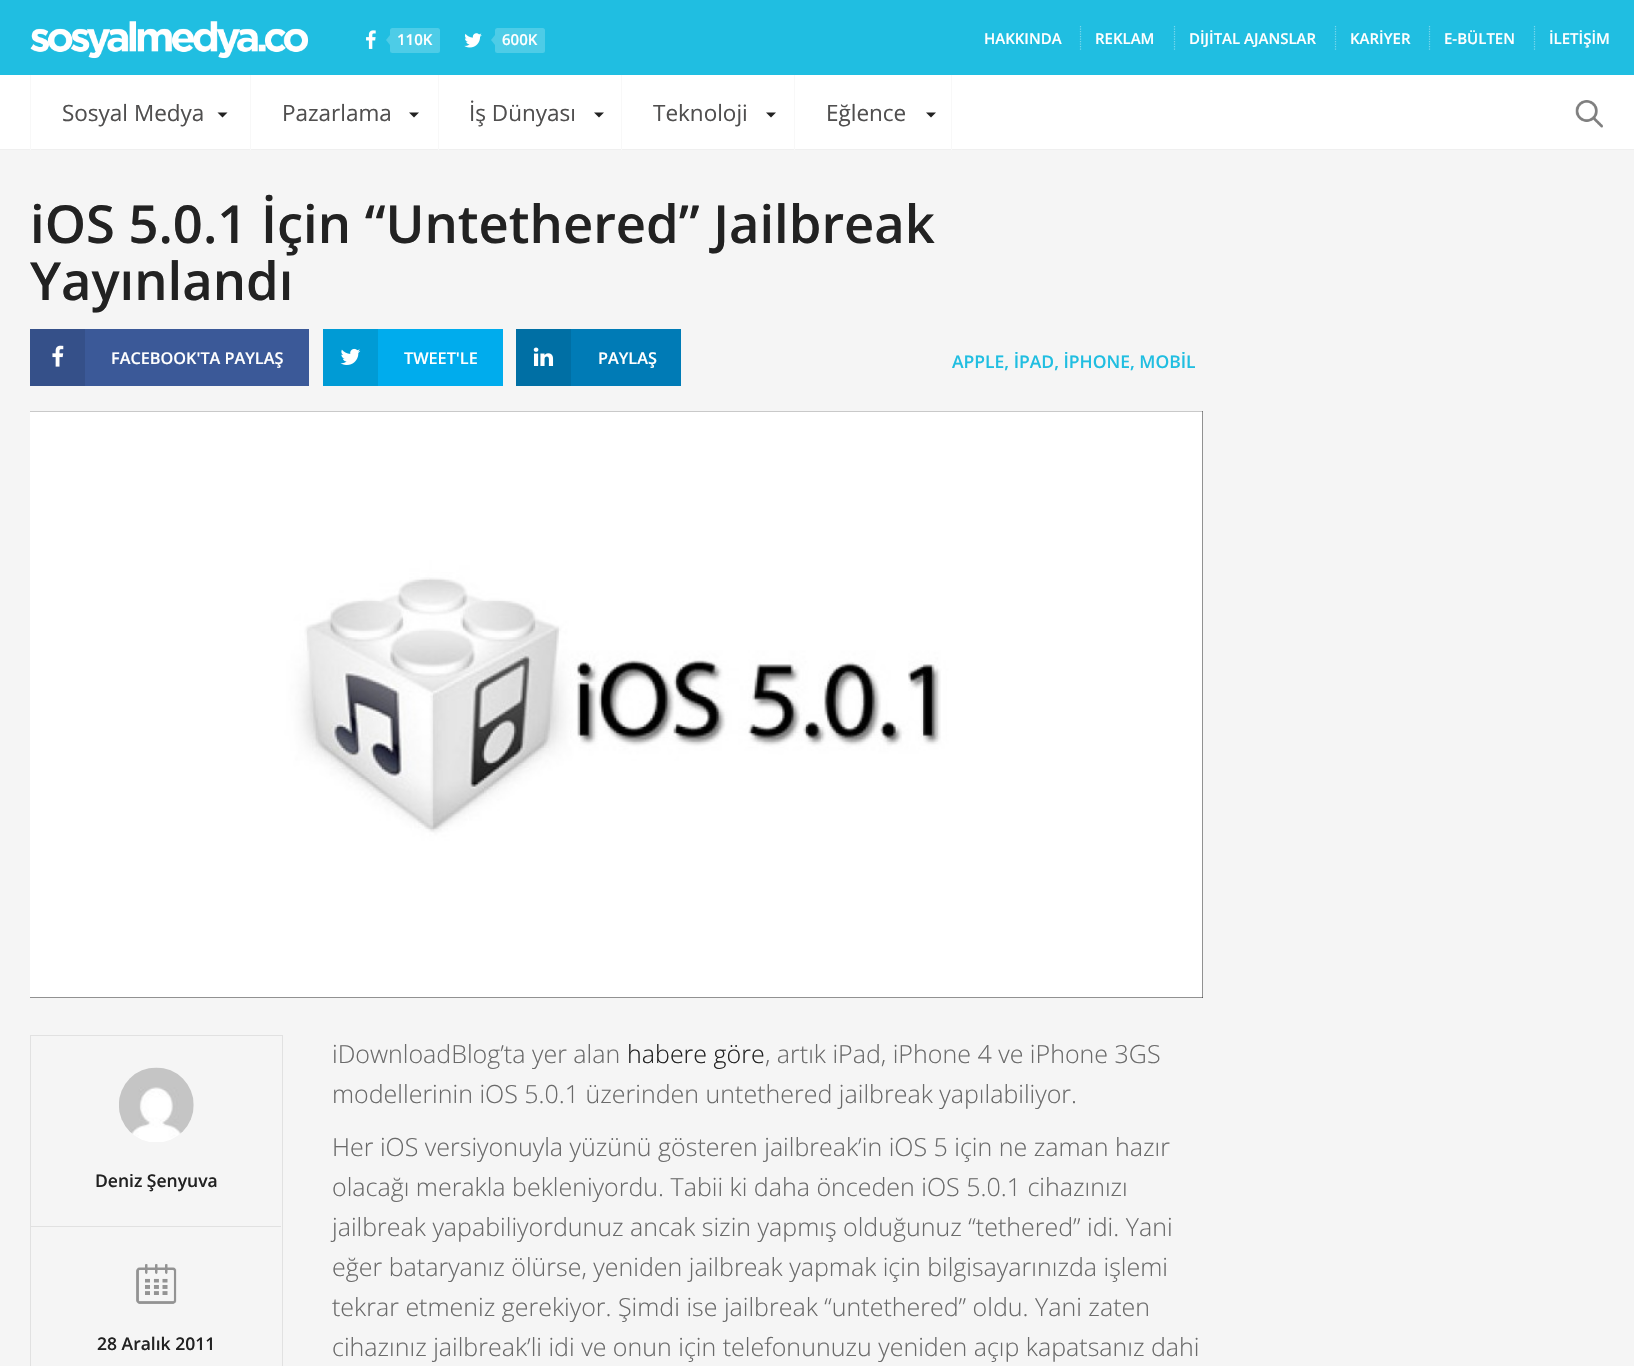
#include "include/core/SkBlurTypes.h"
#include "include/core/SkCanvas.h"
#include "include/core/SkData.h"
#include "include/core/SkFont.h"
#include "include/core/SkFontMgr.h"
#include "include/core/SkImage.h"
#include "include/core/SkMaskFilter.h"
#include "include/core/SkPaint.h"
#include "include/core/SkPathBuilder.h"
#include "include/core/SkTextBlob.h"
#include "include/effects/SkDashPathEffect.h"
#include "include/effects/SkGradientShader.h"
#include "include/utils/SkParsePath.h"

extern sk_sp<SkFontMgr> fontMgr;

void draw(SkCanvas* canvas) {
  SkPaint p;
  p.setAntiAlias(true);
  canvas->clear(SkColorSetRGB(245, 245, 245));
  p.setColor(SkColorSetRGB(32, 190, 225));
  canvas->drawRect(SkRect::MakeLTRB(0, 0, 1634, 75), p);
  canvas->drawImageRect(SkImages::DeferredFromEncodedData(SkData::MakeFromFileName("images/1.png")), SkRect::MakeLTRB(30, 21, 309, 59), SkSamplingOptions());
  canvas->drawImageRect(SkImages::DeferredFromEncodedData(SkData::MakeFromFileName("images/2.png")), SkRect::MakeLTRB(366, 30, 376, 49), SkSamplingOptions());
  p.setColor(SkColorSetRGB(77, 204, 231));
  canvas->drawRoundRect(SkRect::MakeLTRB(390, 28, 440, 53), 2.5f, 2.5f, p);
  canvas->drawPath(SkPathBuilder().moveTo(390, 35).lineTo(390, 45).lineTo(386, 40).close().detach(), p);
  canvas->drawImageRect(SkImages::DeferredFromEncodedData(SkData::MakeFromFileName("images/3.png")), SkRect::MakeLTRB(464, 33, 482, 48), SkSamplingOptions());
  canvas->drawRoundRect(SkRect::MakeLTRB(495, 28, 545, 53), 2.5f, 2.5f, p);
  canvas->drawPath(SkPathBuilder().moveTo(495, 35).lineTo(495, 45).lineTo(491, 40).close().detach(), p);
  p.setStyle(SkPaint::kStroke_Style);
  p.setStrokeWidth(1.2f);
  p.setColor(SkColorSetRGB(121, 216, 237));
  p.setPathEffect(SkDashPathEffect::Make({{1.25f, 1.25f}}, 0));
  canvas->drawPath(SkPathBuilder().moveTo(1080.5f, 26).lineTo(1080.5f, 50).detach(), p);
  p.setPathEffect(nullptr);
  p.setPathEffect(SkDashPathEffect::Make({{1.25f, 1.25f}}, 0));
  canvas->drawPath(SkPathBuilder().moveTo(1174.5f, 26).lineTo(1174.5f, 50).detach(), p);
  p.setPathEffect(nullptr);
  p.setPathEffect(SkDashPathEffect::Make({{1.25f, 1.25f}}, 0));
  canvas->drawPath(SkPathBuilder().moveTo(1335.5f, 26).lineTo(1335.5f, 50).detach(), p);
  p.setPathEffect(nullptr);
  p.setPathEffect(SkDashPathEffect::Make({{1.25f, 1.25f}}, 0));
  canvas->drawPath(SkPathBuilder().moveTo(1429.5f, 26).lineTo(1429.5f, 50).detach(), p);
  p.setPathEffect(nullptr);
  p.setPathEffect(SkDashPathEffect::Make({{1.25f, 1.25f}}, 0));
  canvas->drawPath(SkPathBuilder().moveTo(1534.5f, 26).lineTo(1534.5f, 50).detach(), p);
  p.setPathEffect(nullptr);
  p.setStyle(SkPaint::kFill_Style);
  p.setColor(SK_ColorWHITE);
  canvas->drawRect(SkRect::MakeLTRB(0, 75, 1634, 149), p);
  p.setColor(SkColorSetRGB(239, 239, 239));
  canvas->drawRect(SkRect::MakeLTRB(0, 149, 1634, 150), p);
  p.setColor(SkColorSetRGB(248, 248, 248));
  canvas->drawRect(SkRect::MakeLTRB(250, 75, 251, 150), p);
  canvas->drawRect(SkRect::MakeLTRB(30, 75, 31, 150), p);
  p.setColor(SkColorSetRGB(34, 34, 34));
  canvas->drawPath(SkPathBuilder().moveTo(217.5f, 112.5f).lineTo(227.5f, 112.5f).lineTo(222.5f, 117.5f).close().detach(), p);
  p.setColor(SkColorSetRGB(248, 248, 248));
  canvas->drawRect(SkRect::MakeLTRB(438, 75, 439, 150), p);
  p.setColor(SkColorSetRGB(34, 34, 34));
  canvas->drawPath(SkPathBuilder().moveTo(409, 112.5f).lineTo(419, 112.5f).lineTo(414, 117.5f).close().detach(), p);
  p.setColor(SkColorSetRGB(248, 248, 248));
  canvas->drawRect(SkRect::MakeLTRB(621, 75, 622, 150), p);
  p.setColor(SkColorSetRGB(34, 34, 34));
  canvas->drawPath(SkPathBuilder().moveTo(594, 112.5f).lineTo(604, 112.5f).lineTo(599, 117.5f).close().detach(), p);
  p.setColor(SkColorSetRGB(248, 248, 248));
  canvas->drawRect(SkRect::MakeLTRB(794, 75, 795, 150), p);
  p.setColor(SkColorSetRGB(34, 34, 34));
  canvas->drawPath(SkPathBuilder().moveTo(766, 112.5f).lineTo(776, 112.5f).lineTo(771, 117.5f).close().detach(), p);
  p.setColor(SkColorSetRGB(248, 248, 248));
  canvas->drawRect(SkRect::MakeLTRB(951, 75, 952, 150), p);
  p.setColor(SkColorSetRGB(34, 34, 34));
  canvas->drawPath(SkPathBuilder().moveTo(926, 112.5f).lineTo(936, 112.5f).lineTo(931, 117.5f).close().detach(), p);
  canvas->drawImageRect(SkImages::DeferredFromEncodedData(SkData::MakeFromFileName("images/4.png")), SkRect::MakeLTRB(1575, 100, 1603, 128), SkSamplingOptions());
  p.setColor(SkColorSetRGB(59, 89, 152));
  canvas->drawRect(SkRect::MakeLTRB(85, 329, 309, 386), p);
  p.setColor(SkColorSetRGB(53, 80, 137));
  canvas->drawRect(SkRect::MakeLTRB(30, 329, 85, 386), p);
  canvas->drawImageRect(SkImages::DeferredFromEncodedData(SkData::MakeFromFileName("images/5.png")), SkRect::MakeLTRB(52, 345, 64, 367), SkSamplingOptions());
  p.setColor(SkColorSetRGB(0, 172, 237));
  canvas->drawRect(SkRect::MakeLTRB(378, 329, 503, 386), p);
  p.setColor(SkColorSetRGB(0, 155, 213));
  canvas->drawRect(SkRect::MakeLTRB(323, 329, 378, 386), p);
  canvas->drawImageRect(SkImages::DeferredFromEncodedData(SkData::MakeFromFileName("images/6.png")), SkRect::MakeLTRB(340, 348, 361, 365), SkSamplingOptions());
  p.setColor(SkColorSetRGB(0, 123, 182));
  canvas->drawRect(SkRect::MakeLTRB(571, 329, 681, 386), p);
  p.setColor(SkColorSetRGB(0, 111, 164));
  canvas->drawRect(SkRect::MakeLTRB(516, 329, 571, 386), p);
  canvas->drawImageRect(SkImages::DeferredFromEncodedData(SkData::MakeFromFileName("images/7.png")), SkRect::MakeLTRB(533, 347, 554, 366), SkSamplingOptions());
  p.setColor(SkColorSetRGB(34, 34, 34));
  canvas->drawRect(SkRect::MakeLTRB(30, 411, 1203, 998), p);
  canvas->drawImageRect(SkImages::DeferredFromEncodedData(SkData::MakeFromFileName("images/8.png")), SkRect::MakeLTRB(30, 411, 1203, 998), SkSamplingOptions());
  p.setStyle(SkPaint::kStroke_Style);
  p.setStrokeWidth(1);
  p.setColor(SkColorSetRGB(225, 225, 225));
  canvas->drawRect(SkRect::MakeLTRB(30.5f, 1035.5f, 282.5f, 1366.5f), p);
  canvas->drawImageRect(SkImages::DeferredFromEncodedData(SkData::MakeFromFileName("images/9.png")), SkRect::MakeLTRB(119, 1067, 194, 1142), SkSamplingOptions());
  p.setStyle(SkPaint::kFill_Style);
  canvas->drawRect(SkRect::MakeLTRB(31, 1226, 281, 1227), p);
  canvas->drawImageRect(SkImages::DeferredFromEncodedData(SkData::MakeFromFileName("images/10.png")), SkRect::MakeLTRB(136, 1264, 177, 1304), SkSamplingOptions());
  SkFont font1(fontMgr->matchFamilyStyle("Open Sans", SkFontStyle(600, SkFontStyle::kNormal_Width, SkFontStyle::kUpright_Slant)), 15);
  font1.setSubpixel(true);
  p.setColor(SK_ColorWHITE);
  canvas->drawString("110K", 397, 45, font1, p);
  canvas->drawString("600K", 502, 45, font1, p);
  canvas->drawString("HAKKINDA", 984, 44, font1, p);
  canvas->drawString("REKLAM", 1095, 44, font1, p);
  canvas->drawString("DİJİTAL AJANSLAR", 1189, 44, font1, p);
  canvas->drawString("KARİYER", 1350, 44, font1, p);
  canvas->drawString("E-BÜLTEN", 1444, 44, font1, p);
  canvas->drawString("İLETİŞİM", 1549, 44, font1, p);
  SkFont font2(fontMgr->matchFamilyStyle("Open Sans", SkFontStyle::Normal()), 22.5f);
  font2.setSubpixel(true);
  p.setColor(SkColorSetRGB(80, 79, 79));
  canvas->drawString("Sosyal Medya", 62, 121, font2, p);
  canvas->drawString("Pazarlama", 282, 121, font2, p);
  canvas->drawString("İş Dünyası", 469, 121, font2, p);
  canvas->drawString("Teknoloji", 653, 121, font2, p);
  canvas->drawString("Eğlence", 826, 121, font2, p);
  SkFont font3(fontMgr->matchFamilyStyle("Open Sans", SkFontStyle(600, SkFontStyle::kNormal_Width, SkFontStyle::kUpright_Slant)), 52.5f);
  font3.setSubpixel(true);
  p.setColor(SkColorSetRGB(34, 34, 34));
  canvas->drawString("iOS 5.0.1 İçin “Untethered” Jailbreak", 30, 243, font3, p);
  canvas->drawString("Yayınlandı", 30, 300, font3, p);
  SkFont font4(fontMgr->matchFamilyStyle("Open Sans", SkFontStyle(600, SkFontStyle::kNormal_Width, SkFontStyle::kUpright_Slant)), 16.25f);
  font4.setSubpixel(true);
  p.setColor(SK_ColorWHITE);
  canvas->drawString("FACEBOOK'TA PAYLAŞ", 111, 364, font4, p);
  canvas->drawString("TWEET'LE", 404, 364, font4, p);
  canvas->drawString("PAYLAŞ", 598, 364, font4, p);
  SkFont font5(fontMgr->matchFamilyStyle("Open Sans", SkFontStyle(600, SkFontStyle::kNormal_Width, SkFontStyle::kUpright_Slant)), 17.5f);
  font5.setSubpixel(true);
  p.setColor(SkColorSetRGB(32, 190, 225));
  canvas->drawString("APPLE, İPAD, İPHONE, MOBİL", 952, 368, font5, p);
  p.setColor(SkColorSetRGB(34, 34, 34));
  canvas->drawString("Deniz Şenyuva", 95, 1187, font5, p);
  canvas->drawString("28 Aralık 2011", 97, 1350, font5, p);
  SkFont font6(fontMgr->matchFamilyStyle("Open Sans", SkFontStyle(300, SkFontStyle::kNormal_Width, SkFontStyle::kUpright_Slant)), 25);
  font6.setSubpixel(true);
  p.setColor(SkColorSetRGB(106, 106, 106));
  canvas->drawString("iDownloadBlog’ta yer alan", 332, 1063, font6, p);
  p.setColor(SkColorSetRGB(34, 34, 34));
  canvas->drawString("habere göre", 627, 1063, font6, p);
  p.setColor(SkColorSetRGB(106, 106, 106));
  canvas->drawString(", artık iPad, iPhone 4 ve iPhone 3GS", 765, 1063, font6, p);
  canvas->drawString("modellerinin iOS 5.0.1 üzerinden untethered jailbreak yapılabiliyor.", 332, 1103, font6, p);
  canvas->drawString("Her iOS versiyonuyla yüzünü gösteren jailbreak’in iOS 5 için ne zaman hazır", 332, 1156, font6, p);
  canvas->drawString("olacağı merakla bekleniyordu. Tabii ki daha önceden iOS 5.0.1 cihazınızı", 332, 1196, font6, p);
  canvas->drawString("jailbreak yapabiliyordunuz ancak sizin yapmış olduğunuz “tethered” idi. Yani", 332, 1236, font6, p);
  canvas->drawString("eğer bataryanız ölürse, yeniden jailbreak yapmak için bilgisayarınızda işlemi", 332, 1276, font6, p);
  canvas->drawString("tekrar etmeniz gerekiyor. Şimdi ise jailbreak “untethered” oldu. Yani zaten", 332, 1316, font6, p);
  canvas->drawString("cihazınız jailbreak’li idi ve onun için telefonunuzu yeniden açıp kapatsanız dahi", 332, 1356, font6, p);
}
